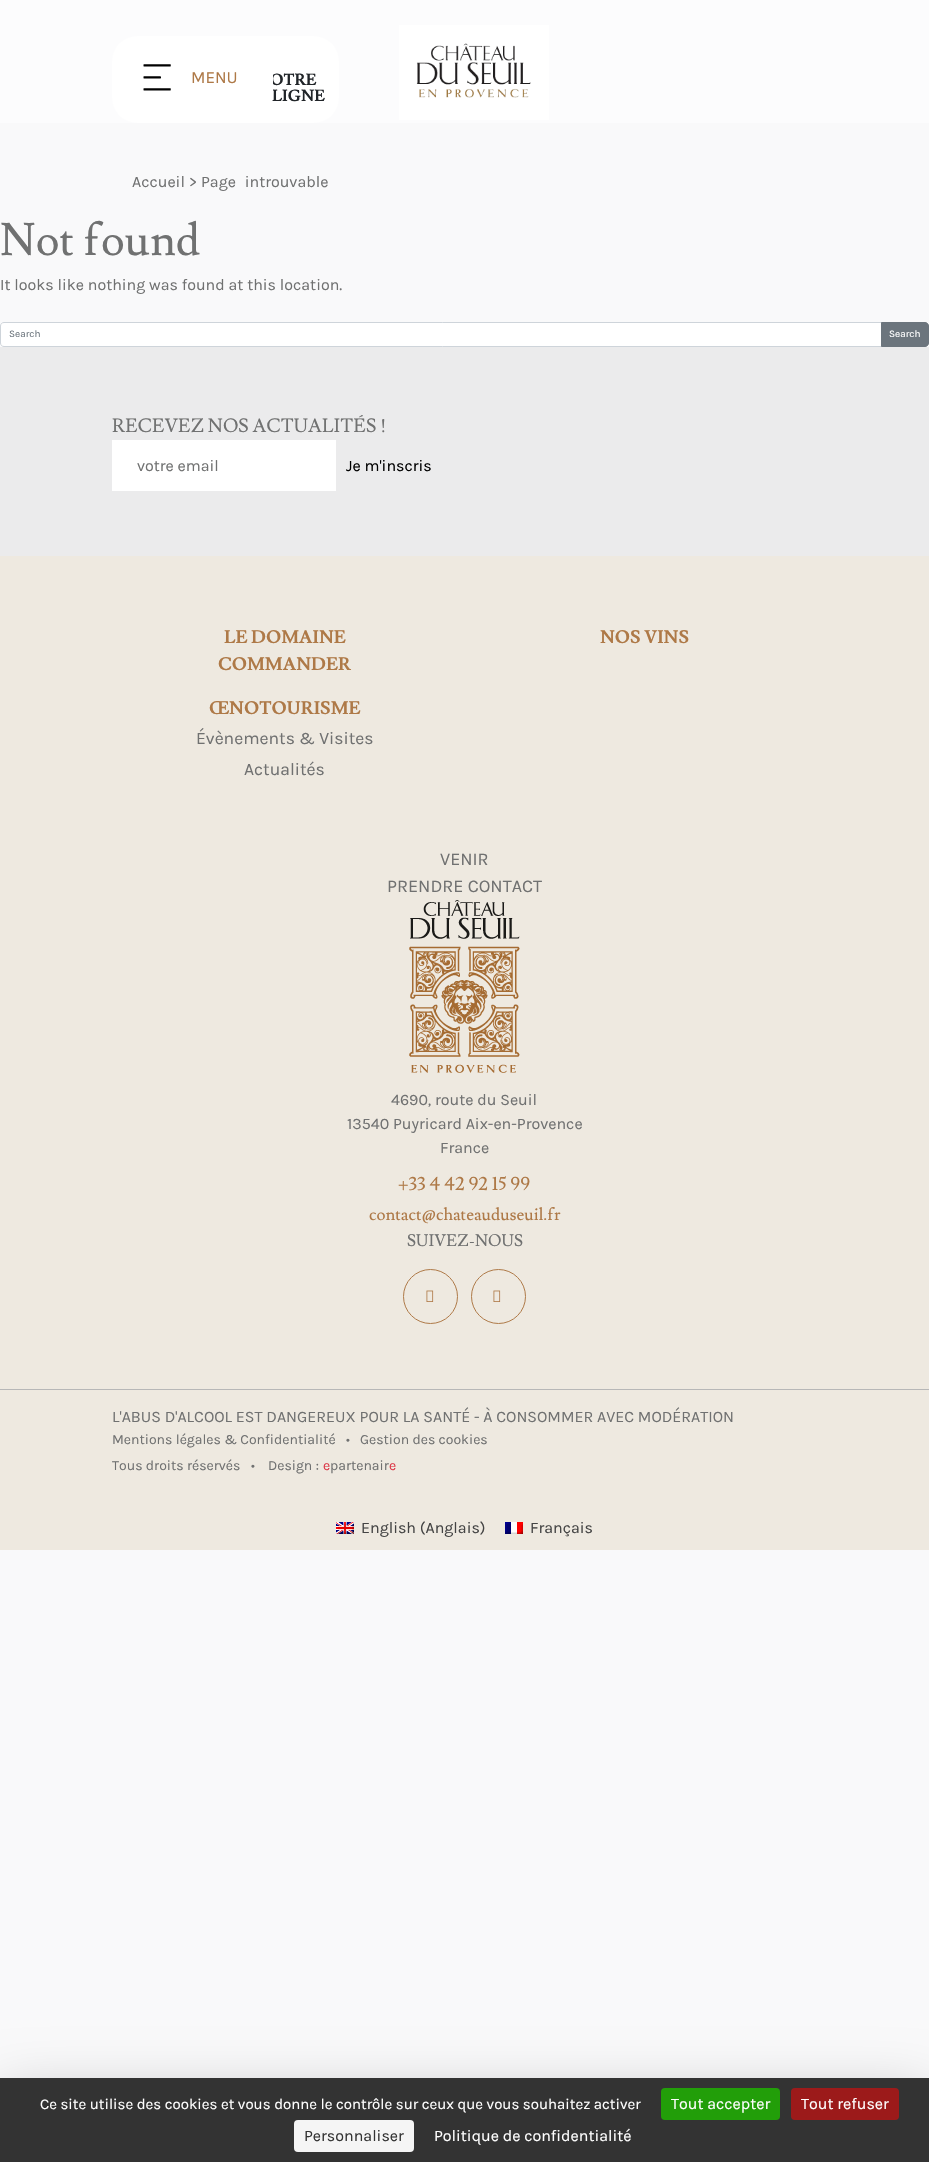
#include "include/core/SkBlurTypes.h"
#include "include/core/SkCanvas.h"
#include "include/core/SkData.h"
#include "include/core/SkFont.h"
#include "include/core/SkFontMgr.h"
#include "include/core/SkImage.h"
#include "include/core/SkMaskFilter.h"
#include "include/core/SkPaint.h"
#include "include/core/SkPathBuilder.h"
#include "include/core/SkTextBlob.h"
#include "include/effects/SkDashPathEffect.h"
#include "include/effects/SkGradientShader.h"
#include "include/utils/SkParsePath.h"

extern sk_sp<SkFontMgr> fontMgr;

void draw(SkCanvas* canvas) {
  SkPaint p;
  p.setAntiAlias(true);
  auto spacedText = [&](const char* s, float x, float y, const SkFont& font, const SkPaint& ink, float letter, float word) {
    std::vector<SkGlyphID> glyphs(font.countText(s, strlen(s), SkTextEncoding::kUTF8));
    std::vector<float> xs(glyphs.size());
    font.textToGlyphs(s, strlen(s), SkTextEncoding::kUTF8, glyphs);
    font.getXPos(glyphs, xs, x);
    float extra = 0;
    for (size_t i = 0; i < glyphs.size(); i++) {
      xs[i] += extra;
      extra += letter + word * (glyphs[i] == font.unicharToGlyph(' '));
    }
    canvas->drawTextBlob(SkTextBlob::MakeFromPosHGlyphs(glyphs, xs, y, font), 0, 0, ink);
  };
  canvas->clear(SkColorSetRGB(249, 249, 250));
  p.setColor(SkColorSetRGB(252, 252, 253));
  canvas->drawRect(SkRect::MakeLTRB(0, 0, 929, 123), p);
  p.setColor(SK_ColorWHITE);
  canvas->drawRoundRect(SkRect::MakeLTRB(112, 36, 339, 123), 25, 25, p);
  canvas->drawRect(SkRect::MakeLTRB(399, 25, 549, 120), p);
  canvas->drawImageRect(SkImages::DeferredFromEncodedData(SkData::MakeFromFileName("images/2.png")), SkRect::MakeLTRB(416, 43, 531, 98), SkSamplingOptions());
  canvas->drawPath(SkPathBuilder().moveTo(4, 322.5f).lineTo(881.5f, 322.5f).lineTo(881.5f, 346.5f).lineTo(4, 346.5f).cubicTo(2, 346.5f, 0.5f, 345, 0.5f, 343).lineTo(0.5f, 326).cubicTo(0.5f, 324, 2, 322.5f, 4, 322.5f).close().detach(), p);
  p.setStyle(SkPaint::kStroke_Style);
  p.setStrokeWidth(1);
  p.setColor(SkColorSetRGB(206, 212, 218));
  canvas->drawPath(SkPathBuilder().moveTo(4, 322.5f).lineTo(881.5f, 322.5f).lineTo(881.5f, 346.5f).lineTo(4, 346.5f).cubicTo(2, 346.5f, 0.5f, 345, 0.5f, 343).lineTo(0.5f, 326).cubicTo(0.5f, 324, 2, 322.5f, 4, 322.5f).close().detach(), p);
  p.setStyle(SkPaint::kFill_Style);
  p.setColor(SkColorSetRGB(108, 117, 125));
  canvas->drawPath(SkPathBuilder().moveTo(881.5f, 322.5f).lineTo(925, 322.5f).cubicTo(927, 322.5f, 928.5f, 324, 928.5f, 326).lineTo(928.5f, 343).cubicTo(928.5f, 345, 927, 346.5f, 925, 346.5f).lineTo(881.5f, 346.5f).close().detach(), p);
  p.setStyle(SkPaint::kStroke_Style);
  canvas->drawPath(SkPathBuilder().moveTo(881.5f, 322.5f).lineTo(925, 322.5f).cubicTo(927, 322.5f, 928.5f, 324, 928.5f, 326).lineTo(928.5f, 343).cubicTo(928.5f, 345, 927, 346.5f, 925, 346.5f).lineTo(881.5f, 346.5f).close().detach(), p);
  p.setStyle(SkPaint::kFill_Style);
  p.setColor(SkColorSetRGB(235, 235, 236));
  canvas->drawRect(SkRect::MakeLTRB(0, 347, 929, 556), p);
  p.setColor(SK_ColorWHITE);
  canvas->drawRect(SkRect::MakeLTRB(112, 440, 336, 491), p);
  p.setColor(SkColorSetRGB(238, 233, 224));
  canvas->drawRect(SkRect::MakeLTRB(0, 556, 929, 1550), p);
  canvas->drawImageRect(SkImages::DeferredFromEncodedData(SkData::MakeFromFileName("images/3.png")), SkRect::MakeLTRB(409, 900, 520, 1073), SkSamplingOptions());
  p.setStyle(SkPaint::kStroke_Style);
  p.setColor(SkColorSetRGB(174, 121, 71));
  canvas->drawCircle(430.5f, 1296.5f, 27, p);
  canvas->drawImageRect(SkImages::DeferredFromEncodedData(SkData::MakeFromFileName("images/4.png")), SkRect::MakeLTRB(426, 1290, 434, 1302), SkSamplingOptions());
  canvas->drawCircle(498.5f, 1296.5f, 27, p);
  canvas->drawImageRect(SkImages::DeferredFromEncodedData(SkData::MakeFromFileName("images/4.png")), SkRect::MakeLTRB(493, 1290, 501, 1302), SkSamplingOptions());
  p.setStyle(SkPaint::kFill_Style);
  p.setColor(SkColorSetRGB(183, 183, 183));
  canvas->drawRect(SkRect::MakeLTRB(0, 1389, 929, 1390), p);
  canvas->drawImageRect(SkImages::DeferredFromEncodedData(SkData::MakeFromFileName("images/5.png")), SkRect::MakeLTRB(336, 1522, 354, 1534), SkSamplingOptions());
  canvas->drawImageRect(SkImages::DeferredFromEncodedData(SkData::MakeFromFileName("images/6.png")), SkRect::MakeLTRB(505, 1522, 523, 1534), SkSamplingOptions());
  p.setColor(SkColorSetARGB(64, 0, 0, 0));
  p.setMaskFilter(SkMaskFilter::MakeBlur(kNormal_SkBlurStyle, 30));
  canvas->drawRect(SkRect::MakeLTRB(0, 2098, 929, 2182), p);
  p.setMaskFilter(nullptr);
  p.setColor(SkColorSetRGB(51, 51, 51));
  canvas->drawRect(SkRect::MakeLTRB(0, 2078, 929, 2162), p);
  p.setColor(SkColorSetRGB(34, 158, 9));
  canvas->drawRoundRect(SkRect::MakeLTRB(661, 2088, 780, 2120), 4, 4, p);
  p.setColor(SkColorSetRGB(156, 26, 26));
  canvas->drawRoundRect(SkRect::MakeLTRB(791, 2088, 899, 2120), 4, 4, p);
  p.setColor(SkColorSetRGB(245, 245, 245));
  canvas->drawRoundRect(SkRect::MakeLTRB(294, 2120, 414, 2152), 4, 4, p);
  SkFont font1(fontMgr->matchFamilyStyle("Lusitana", SkFontStyle::Bold()), 16);
  font1.setSubpixel(true);
  p.setColor(SkColorSetRGB(33, 37, 41));
  canvas->drawString("OTRE", 270, 85, font1, p);
  canvas->drawString("LIGNE", 272, 101, font1, p);
  p.setColor(SK_ColorWHITE);
  canvas->drawRoundRect(SkRect::MakeLTRB(118, 39, 273, 116), 25, 25, p);
  SkFont font2(fontMgr->matchFamilyStyle("Karla", SkFontStyle::Normal()), 17);
  font2.setSubpixel(true);
  p.setColor(SkColorSetRGB(174, 121, 71));
  canvas->drawString("MENU", 191, 83, font2, p);
  canvas->drawImageRect(SkImages::DeferredFromEncodedData(SkData::MakeFromFileName("images/1.png")), SkRect::MakeLTRB(143, 64, 171, 91), SkSamplingOptions());
  SkFont font3(fontMgr->matchFamilyStyle("Karla", SkFontStyle::Normal()), 16);
  font3.setSubpixel(true);
  p.setColor(SkColorSetRGB(112, 113, 113));
  canvas->drawString("Accueil >", 132, 187, font3, p);
  spacedText("Page introuvable", 201, 187, font3, p, 0, 5);
  SkFont font4(fontMgr->matchFamilyStyle("Lusitana", SkFontStyle::Normal()), 45);
  font4.setSubpixel(true);
  canvas->drawString("Not found", 0, 255, font4, p);
  canvas->drawString("It looks like nothing was found at this location.", 0, 290, font3, p);
  SkFont font5(fontMgr->matchFamilyStyle("Karla", SkFontStyle::Normal()), 10);
  font5.setSubpixel(true);
  p.setColor(SkColorSetRGB(108, 117, 125));
  canvas->drawString("Search", 9, 337, font5, p);
  p.setColor(SK_ColorWHITE);
  canvas->drawString("Search", 889, 337, font5, p);
  SkFont font6(fontMgr->matchFamilyStyle("Lusitana", SkFontStyle::Normal()), 19);
  font6.setSubpixel(true);
  p.setColor(SkColorSetRGB(112, 113, 113));
  canvas->drawString("RECEVEZ NOS ACTUALITÉS !", 112, 432, font6, p);
  canvas->drawString("votre email", 137, 471, font3, p);
  p.setColor(SK_ColorBLACK);
  canvas->drawString("Je m'inscris", 346, 471, font3, p);
  SkFont font7(fontMgr->matchFamilyStyle("Lusitana", SkFontStyle::Bold()), 18);
  font7.setSubpixel(true);
  p.setColor(SkColorSetRGB(174, 121, 71));
  canvas->drawString("LE DOMAINE", 224, 643, font7, p);
  canvas->drawString("COMMANDER", 218, 670, font7, p);
  canvas->drawString("NOS VINS", 600, 643, font7, p);
  canvas->drawString("ŒNOTOURISME", 209, 714, font7, p);
  SkFont font8(fontMgr->matchFamilyStyle("Karla", SkFontStyle::Normal()), 17.5f);
  font8.setSubpixel(true);
  p.setColor(SkColorSetRGB(112, 113, 113));
  canvas->drawString("Évènements & Visites", 196, 744, font8, p);
  canvas->drawString("Actualités", 244, 775, font8, p);
  SkFont font9(fontMgr->matchFamilyStyle("Karla", SkFontStyle::Normal()), 18);
  font9.setSubpixel(true);
  canvas->drawString("VENIR", 440, 865, font9, p);
  canvas->drawString("PRENDRE CONTACT", 387, 892, font9, p);
  canvas->drawString("4690, route du Seuil", 391, 1105, font3, p);
  canvas->drawString("13540 Puyricard Aix-en-Provence", 347, 1129, font3, p);
  canvas->drawString("France", 440, 1153, font3, p);
  p.setColor(SkColorSetRGB(174, 121, 71));
  canvas->drawString("+33 4 42 92 15 99", 398, 1190, font6, p);
  SkFont font10(fontMgr->matchFamilyStyle("Lusitana", SkFontStyle::Normal()), 17);
  font10.setSubpixel(true);
  canvas->drawString("contact@chateauduseuil.fr", 369, 1220, font10, p);
  SkFont font11(fontMgr->matchFamilyStyle("Lusitana", SkFontStyle::Normal()), 16.5f);
  font11.setSubpixel(true);
  p.setColor(SkColorSetRGB(112, 113, 113));
  canvas->drawString("SUIVEZ-NOUS", 407, 1246, font11, p);
  canvas->drawString("L'ABUS D'ALCOOL EST DANGEREUX POUR LA SANTÉ - À CONSOMMER AVEC MODÉRATION", 112, 1422, font3, p);
  SkFont font12(fontMgr->matchFamilyStyle("Karla", SkFontStyle::Normal()), 14);
  font12.setSubpixel(true);
  canvas->drawString("Mentions légales & Confidentialité", 112, 1444, font12, p);
  canvas->drawString("•", 346, 1444, font12, p);
  canvas->drawString("Gestion des cookies", 360, 1444, font12, p);
  canvas->drawString("Tous droits réservés", 112, 1470, font12, p);
  canvas->drawString("•", 251, 1470, font12, p);
  canvas->drawString("Design :", 268, 1470, font12, p);
  p.setColor(SkColorSetRGB(220, 53, 69));
  canvas->drawString("e", 323, 1470, font12, p);
  p.setColor(SkColorSetRGB(112, 113, 113));
  canvas->drawString("partenair", 330, 1470, font12, p);
  p.setColor(SkColorSetRGB(220, 53, 69));
  canvas->drawString("e", 389, 1470, font12, p);
  p.setColor(SkColorSetRGB(68, 68, 68));
  canvas->drawString("English (Anglais)", 361, 1533, font3, p);
  canvas->drawString("Français", 530, 1533, font3, p);
  SkFont font13(fontMgr->matchFamilyStyle("Karla", SkFontStyle::Normal()), 15);
  font13.setSubpixel(true);
  p.setColor(SK_ColorWHITE);
  canvas->drawString("Ce site utilise des cookies et vous donne le contrôle sur ceux que vous souhaitez activer", 40, 2109, font13, p);
  canvas->drawString("Tout accepter", 671, 2109, font3, p);
  canvas->drawString("Tout refuser", 801, 2109, font3, p);
  p.setColor(SkColorSetRGB(51, 51, 51));
  canvas->drawString("Personnaliser", 304, 2141, font3, p);
  p.setColor(SK_ColorWHITE);
  canvas->drawString("Politique de confidentialité", 434, 2141, font3, p);
}
